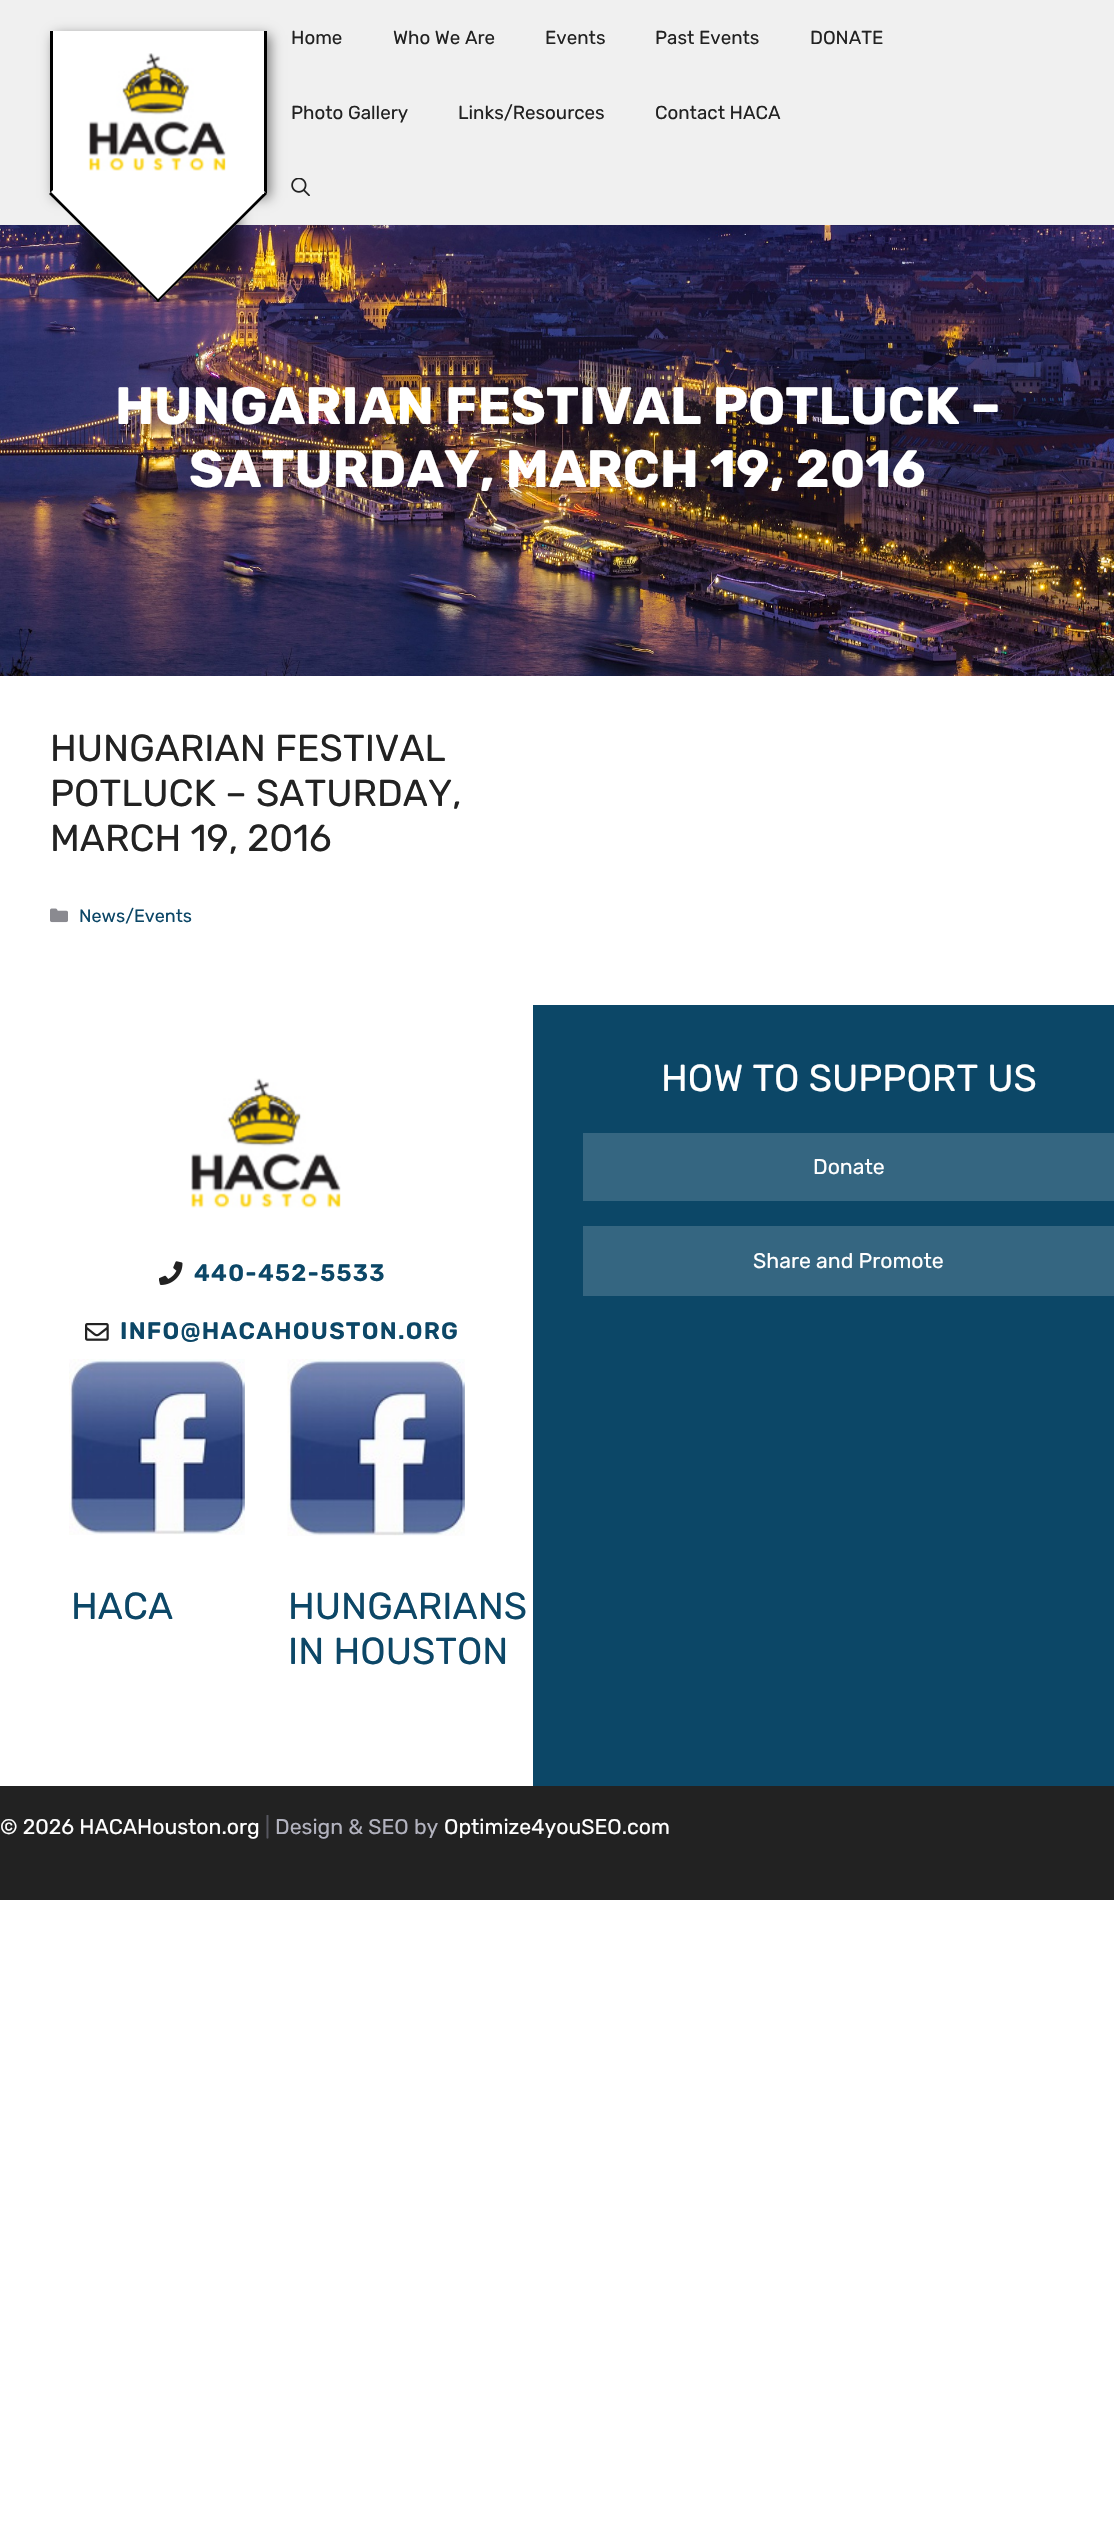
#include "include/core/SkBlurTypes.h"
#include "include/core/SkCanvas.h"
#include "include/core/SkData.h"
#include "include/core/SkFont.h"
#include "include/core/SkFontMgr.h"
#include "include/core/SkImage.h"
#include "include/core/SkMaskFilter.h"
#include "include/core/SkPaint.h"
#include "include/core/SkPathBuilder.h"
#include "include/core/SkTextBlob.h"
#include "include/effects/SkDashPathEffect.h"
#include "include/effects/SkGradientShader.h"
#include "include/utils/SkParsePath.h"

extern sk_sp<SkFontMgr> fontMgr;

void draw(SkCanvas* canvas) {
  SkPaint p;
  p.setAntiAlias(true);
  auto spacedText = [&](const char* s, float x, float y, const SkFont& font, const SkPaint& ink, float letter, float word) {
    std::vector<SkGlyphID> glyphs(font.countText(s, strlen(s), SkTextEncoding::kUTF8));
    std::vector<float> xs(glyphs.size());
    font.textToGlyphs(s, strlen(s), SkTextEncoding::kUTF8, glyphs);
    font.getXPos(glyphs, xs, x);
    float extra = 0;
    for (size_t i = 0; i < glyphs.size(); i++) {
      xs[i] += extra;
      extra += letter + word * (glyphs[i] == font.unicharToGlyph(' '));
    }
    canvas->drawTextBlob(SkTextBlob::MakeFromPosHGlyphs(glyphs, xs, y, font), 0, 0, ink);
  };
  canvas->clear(SK_ColorWHITE);
  p.setColor(SkColorSetRGB(240, 240, 240));
  canvas->drawRect(SkRect::MakeLTRB(0, 0, 1114, 225), p);
  p.setColor(SkColorSetARGB(128, 0, 0, 0));
  p.setMaskFilter(SkMaskFilter::MakeBlur(kNormal_SkBlurStyle, 6));
  canvas->drawRect(SkRect::MakeLTRB(54, 35, 270, 198), p);
  p.setMaskFilter(nullptr);
  p.setColor(SK_ColorBLACK);
  canvas->drawRect(SkRect::MakeLTRB(264, 31, 267, 194), p);
  canvas->drawRect(SkRect::MakeLTRB(50, 31, 53, 194), p);
  canvas->drawImageRect(SkImages::DeferredFromEncodedData(SkData::MakeFromFileName("images/3.png")), SkRect::MakeLTRB(0, 225, 1114, 676), SkSamplingOptions());
  p.setColor(SkColorSetARGB(128, 0, 0, 0));
  p.setMaskFilter(SkMaskFilter::MakeBlur(kNormal_SkBlurStyle, 6.5f));
  canvas->drawRect(SkRect::MakeLTRB(85, 121, 239, 275), p);
  p.setMaskFilter(nullptr);
  p.setColor(SK_ColorWHITE);
  canvas->drawPath(SkPathBuilder().moveTo(158, 85).lineTo(267, 194).lineTo(158, 302).lineTo(49, 194).close().detach(), p);
  p.setColor(SK_ColorBLACK);
  canvas->drawPath(SkPathBuilder().moveTo(265, 192).lineTo(267, 194).lineTo(158, 302).lineTo(156, 301).close().detach(), p);
  canvas->drawPath(SkPathBuilder().moveTo(51, 192).lineTo(160, 301).lineTo(158, 302).lineTo(49, 194).close().detach(), p);
  p.setColor(SK_ColorWHITE);
  canvas->drawRect(SkRect::MakeLTRB(53, 31, 264, 194), p);
  canvas->drawImageRect(SkImages::DeferredFromEncodedData(SkData::MakeFromFileName("images/1.png")), SkRect::MakeLTRB(88, 53, 226, 171), SkSamplingOptions());
  canvas->drawImageRect(SkImages::DeferredFromEncodedData(SkData::MakeFromFileName("images/2.png")), SkRect::MakeLTRB(291, 178, 310, 196), SkSamplingOptions());
  canvas->drawImageRect(SkImages::DeferredFromEncodedData(SkData::MakeFromFileName("images/4.png")), SkRect::MakeLTRB(50, 908, 68, 923), SkSamplingOptions());
  p.setColor(SkColorSetRGB(12, 71, 103));
  canvas->drawRect(SkRect::MakeLTRB(533, 1005, 1114, 1786), p);
  p.setColor(SkColorSetRGB(53, 102, 129));
  canvas->drawRect(SkRect::MakeLTRB(583, 1133, 1114, 1201), p);
  canvas->drawRect(SkRect::MakeLTRB(583, 1226, 1114, 1296), p);
  canvas->drawImageRect(SkImages::DeferredFromEncodedData(SkData::MakeFromFileName("images/5.png")), SkRect::MakeLTRB(191, 1078, 341, 1208), SkSamplingOptions());
  canvas->drawImageRect(SkImages::DeferredFromEncodedData(SkData::MakeFromFileName("images/6.png")), SkRect::MakeLTRB(159, 1261, 183, 1285), SkSamplingOptions());
  canvas->drawImageRect(SkImages::DeferredFromEncodedData(SkData::MakeFromFileName("images/7.png")), SkRect::MakeLTRB(85, 1323, 109, 1341), SkSamplingOptions());
  canvas->drawImageRect(SkImages::DeferredFromEncodedData(SkData::MakeFromFileName("images/8.png")), SkRect::MakeLTRB(69, 1359, 245, 1535), SkSamplingOptions());
  canvas->drawImageRect(SkImages::DeferredFromEncodedData(SkData::MakeFromFileName("images/9.png")), SkRect::MakeLTRB(287, 1359, 465, 1536), SkSamplingOptions());
  p.setColor(SkColorSetRGB(34, 34, 34));
  canvas->drawRect(SkRect::MakeLTRB(0, 1786, 1114, 1900), p);
  SkFont font1(fontMgr->matchFamilyStyle("Rubik", SkFontStyle::Normal()), 18.75f);
  font1.setSubpixel(true);
  canvas->drawString("Home", 291, 44, font1, p);
  canvas->drawString("Who We Are", 393, 44, font1, p);
  canvas->drawString("Events", 545, 44, font1, p);
  canvas->drawString("Past Events", 655, 44, font1, p);
  canvas->drawString("DONATE", 810, 44, font1, p);
  canvas->drawString("Photo Gallery", 291, 119, font1, p);
  canvas->drawString("Links/Resources", 458, 119, font1, p);
  canvas->drawString("Contact HACA", 655, 119, font1, p);
  SkFont font2(fontMgr->matchFamilyStyle("Rubik", SkFontStyle::Bold()), 52.5f);
  font2.setSubpixel(true);
  p.setColor(SK_ColorWHITE);
  canvas->drawString("HUNGARIAN FESTIVAL POTLUCK –", 115, 424, font2, p);
  canvas->drawString("SATURDAY, MARCH 19, 2016", 189, 487, font2, p);
  SkFont font3(fontMgr->matchFamilyStyle("Rubik", SkFontStyle::Normal()), 37.5f);
  font3.setSubpixel(true);
  p.setColor(SkColorSetRGB(34, 34, 34));
  canvas->drawString("HUNGARIAN FESTIVAL", 50, 761, font3, p);
  canvas->drawString("POTLUCK – SATURDAY,", 50, 806, font3, p);
  canvas->drawString("MARCH 19, 2016", 50, 851, font3, p);
  SkFont font4(fontMgr->matchFamilyStyle("Rubik", SkFontStyle::Normal()), 18);
  font4.setSubpixel(true);
  p.setColor(SkColorSetRGB(12, 71, 103));
  canvas->drawString("News/Events", 79, 922, font4, p);
  p.setColor(SK_ColorWHITE);
  canvas->drawString("HOW TO SUPPORT US", 661, 1091, font3, p);
  SkFont font5(fontMgr->matchFamilyStyle("Rubik", SkFontStyle::Normal()), 21.25f);
  font5.setSubpixel(true);
  canvas->drawString("Donate", 813, 1174, font5, p);
  canvas->drawString("Share and Promote", 753, 1268, font5, p);
  SkFont font6(fontMgr->matchFamilyStyle("Rubik", SkFontStyle(600, SkFontStyle::kNormal_Width, SkFontStyle::kUpright_Slant)), 23.75f);
  font6.setSubpixel(true);
  p.setColor(SkColorSetRGB(12, 71, 103));
  spacedText("440-452-5533", 194, 1281, font6, p, 1.25f, 0);
  spacedText("INFO@HACAHOUSTON.ORG", 120, 1339, font6, p, 1.25f, 0);
  canvas->drawString("HACA", 71, 1619, font3, p);
  canvas->drawString("HUNGARIANS", 288, 1619, font3, p);
  canvas->drawString("IN HOUSTON", 288, 1664, font3, p);
  p.setColor(SK_ColorWHITE);
  canvas->drawString("© 2026 HACAHouston.org", 0, 1834, font5, p);
  p.setColor(SkColorSetRGB(87, 87, 96));
  canvas->drawString("|", 265, 1834, font5, p);
  p.setColor(SkColorSetRGB(178, 178, 190));
  canvas->drawString("Design & SEO by", 275, 1834, font5, p);
  p.setColor(SK_ColorWHITE);
  canvas->drawString("Optimize4youSEO.com", 444, 1834, font5, p);
}
